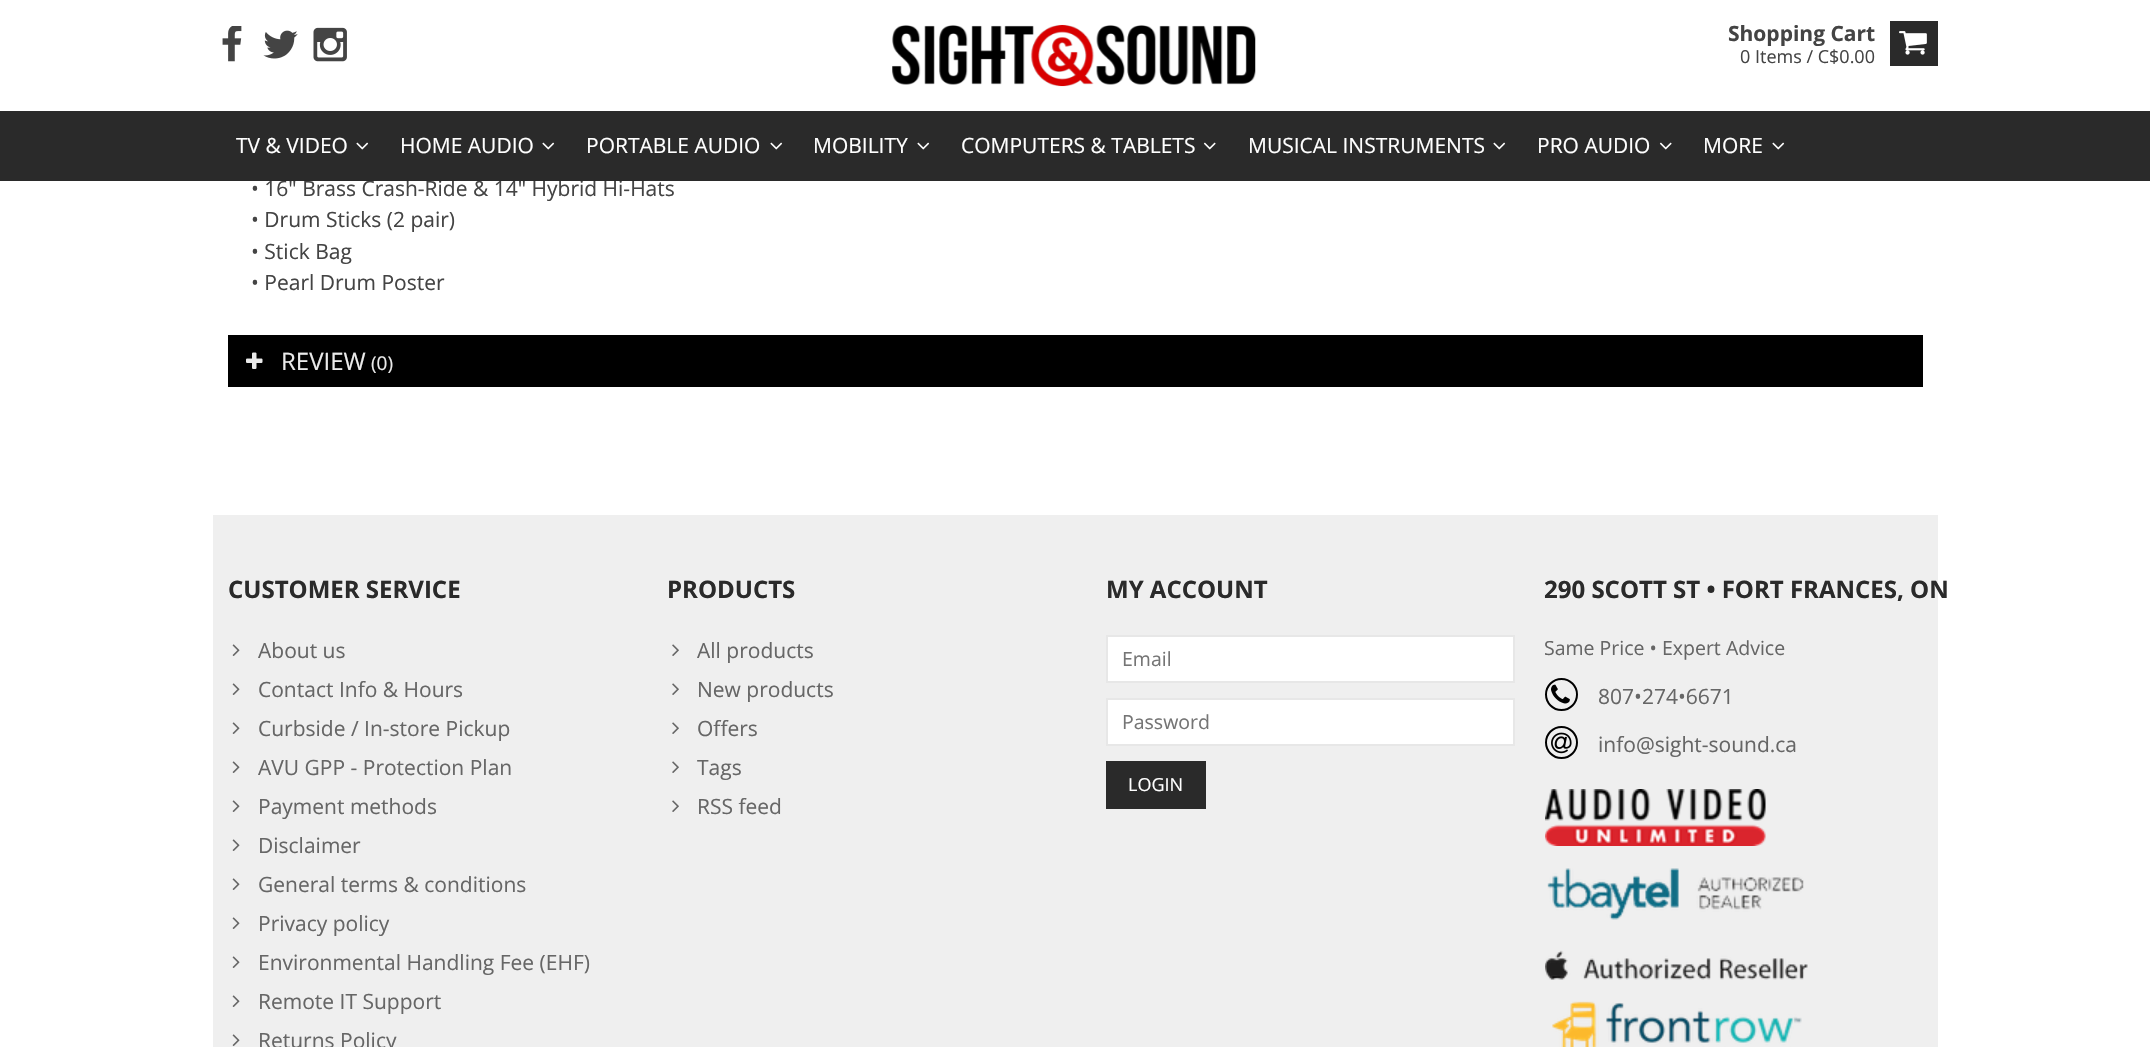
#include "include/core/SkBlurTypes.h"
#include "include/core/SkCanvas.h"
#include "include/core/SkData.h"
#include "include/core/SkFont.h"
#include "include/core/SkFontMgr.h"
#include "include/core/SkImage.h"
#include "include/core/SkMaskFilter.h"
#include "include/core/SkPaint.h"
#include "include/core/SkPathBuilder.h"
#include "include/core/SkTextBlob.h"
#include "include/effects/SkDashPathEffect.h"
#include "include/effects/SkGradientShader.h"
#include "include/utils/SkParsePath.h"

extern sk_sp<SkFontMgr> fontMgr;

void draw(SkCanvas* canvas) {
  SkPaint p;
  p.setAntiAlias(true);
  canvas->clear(SK_ColorWHITE);
  canvas->drawImageRect(SkImages::DeferredFromEncodedData(SkData::MakeFromFileName("images/1.png")), SkRect::MakeLTRB(222, 26, 242, 62), SkSamplingOptions());
  canvas->drawImageRect(SkImages::DeferredFromEncodedData(SkData::MakeFromFileName("images/2.png")), SkRect::MakeLTRB(263, 30, 298, 59), SkSamplingOptions());
  canvas->drawImageRect(SkImages::DeferredFromEncodedData(SkData::MakeFromFileName("images/3.png")), SkRect::MakeLTRB(313, 27, 347, 62), SkSamplingOptions());
  canvas->drawImageRect(SkImages::DeferredFromEncodedData(SkData::MakeFromFileName("images/4.png")), SkRect::MakeLTRB(892, 24, 1256, 87), SkSamplingOptions());
  p.setColor(SkColorSetRGB(42, 42, 42));
  canvas->drawRect(SkRect::MakeLTRB(1890, 21, 1938, 66), p);
  canvas->drawImageRect(SkImages::DeferredFromEncodedData(SkData::MakeFromFileName("images/5.png")), SkRect::MakeLTRB(1899, 31, 1927, 55), SkSamplingOptions());
  p.setColor(SK_ColorBLACK);
  canvas->drawRect(SkRect::MakeLTRB(228, 335, 1923, 387), p);
  canvas->drawImageRect(SkImages::DeferredFromEncodedData(SkData::MakeFromFileName("images/8.png")), SkRect::MakeLTRB(246, 352, 263, 369), SkSamplingOptions());
  p.setColor(SkColorSetRGB(239, 239, 239));
  canvas->drawRect(SkRect::MakeLTRB(213, 515, 1938, 1047), p);
  canvas->drawImageRect(SkImages::DeferredFromEncodedData(SkData::MakeFromFileName("images/9.png")), SkRect::MakeLTRB(232, 644, 240, 656), SkSamplingOptions());
  canvas->drawImageRect(SkImages::DeferredFromEncodedData(SkData::MakeFromFileName("images/9.png")), SkRect::MakeLTRB(232, 683, 240, 695), SkSamplingOptions());
  canvas->drawImageRect(SkImages::DeferredFromEncodedData(SkData::MakeFromFileName("images/9.png")), SkRect::MakeLTRB(232, 722, 240, 734), SkSamplingOptions());
  canvas->drawImageRect(SkImages::DeferredFromEncodedData(SkData::MakeFromFileName("images/9.png")), SkRect::MakeLTRB(232, 761, 240, 773), SkSamplingOptions());
  canvas->drawImageRect(SkImages::DeferredFromEncodedData(SkData::MakeFromFileName("images/9.png")), SkRect::MakeLTRB(232, 800, 240, 812), SkSamplingOptions());
  canvas->drawImageRect(SkImages::DeferredFromEncodedData(SkData::MakeFromFileName("images/9.png")), SkRect::MakeLTRB(232, 839, 240, 851), SkSamplingOptions());
  canvas->drawImageRect(SkImages::DeferredFromEncodedData(SkData::MakeFromFileName("images/9.png")), SkRect::MakeLTRB(232, 878, 240, 890), SkSamplingOptions());
  canvas->drawImageRect(SkImages::DeferredFromEncodedData(SkData::MakeFromFileName("images/9.png")), SkRect::MakeLTRB(232, 917, 240, 929), SkSamplingOptions());
  canvas->drawImageRect(SkImages::DeferredFromEncodedData(SkData::MakeFromFileName("images/9.png")), SkRect::MakeLTRB(232, 956, 240, 968), SkSamplingOptions());
  canvas->drawImageRect(SkImages::DeferredFromEncodedData(SkData::MakeFromFileName("images/9.png")), SkRect::MakeLTRB(232, 995, 240, 1007), SkSamplingOptions());
  canvas->drawImageRect(SkImages::DeferredFromEncodedData(SkData::MakeFromFileName("images/9.png")), SkRect::MakeLTRB(232, 1034, 240, 1046), SkSamplingOptions());
  canvas->drawImageRect(SkImages::DeferredFromEncodedData(SkData::MakeFromFileName("images/10.png")), SkRect::MakeLTRB(672, 644, 679, 656), SkSamplingOptions());
  canvas->drawImageRect(SkImages::DeferredFromEncodedData(SkData::MakeFromFileName("images/10.png")), SkRect::MakeLTRB(672, 683, 679, 695), SkSamplingOptions());
  canvas->drawImageRect(SkImages::DeferredFromEncodedData(SkData::MakeFromFileName("images/10.png")), SkRect::MakeLTRB(672, 722, 679, 734), SkSamplingOptions());
  canvas->drawImageRect(SkImages::DeferredFromEncodedData(SkData::MakeFromFileName("images/10.png")), SkRect::MakeLTRB(672, 761, 679, 773), SkSamplingOptions());
  canvas->drawImageRect(SkImages::DeferredFromEncodedData(SkData::MakeFromFileName("images/10.png")), SkRect::MakeLTRB(672, 800, 679, 812), SkSamplingOptions());
  p.setColor(SK_ColorWHITE);
  canvas->drawRect(SkRect::MakeLTRB(1107, 636, 1514, 682), p);
  p.setStyle(SkPaint::kStroke_Style);
  p.setStrokeWidth(2);
  p.setColor(SkColorSetRGB(231, 231, 231));
  canvas->drawRect(SkRect::MakeLTRB(1107, 636, 1514, 682), p);
  p.setStyle(SkPaint::kFill_Style);
  p.setColor(SK_ColorWHITE);
  canvas->drawRect(SkRect::MakeLTRB(1107, 699, 1514, 745), p);
  p.setStyle(SkPaint::kStroke_Style);
  p.setColor(SkColorSetRGB(231, 231, 231));
  canvas->drawRect(SkRect::MakeLTRB(1107, 699, 1514, 745), p);
  p.setStyle(SkPaint::kFill_Style);
  p.setColor(SkColorSetRGB(42, 42, 42));
  canvas->drawRect(SkRect::MakeLTRB(1106, 761, 1206, 809), p);
  p.setStyle(SkPaint::kStroke_Style);
  p.setColor(SK_ColorBLACK);
  canvas->drawCircle(1561.5f, 694.5f, 15.5f, p);
  canvas->drawImageRect(SkImages::DeferredFromEncodedData(SkData::MakeFromFileName("images/11.png")), SkRect::MakeLTRB(1551, 684, 1570, 704), SkSamplingOptions());
  canvas->drawCircle(1561.5f, 742.5f, 15.5f, p);
  canvas->drawImageRect(SkImages::DeferredFromEncodedData(SkData::MakeFromFileName("images/12.png")), SkRect::MakeLTRB(1551, 732, 1572, 754), SkSamplingOptions());
  canvas->drawImageRect(SkImages::DeferredFromEncodedData(SkData::MakeFromFileName("images/13.png")), SkRect::MakeLTRB(1545, 789, 1766, 846), SkSamplingOptions());
  canvas->drawImageRect(SkImages::DeferredFromEncodedData(SkData::MakeFromFileName("images/14.png")), SkRect::MakeLTRB(1547, 868, 1804, 920), SkSamplingOptions());
  canvas->drawImageRect(SkImages::DeferredFromEncodedData(SkData::MakeFromFileName("images/15.png")), SkRect::MakeLTRB(1545, 950, 1808, 980), SkSamplingOptions());
  canvas->drawImageRect(SkImages::DeferredFromEncodedData(SkData::MakeFromFileName("images/16.png")), SkRect::MakeLTRB(1552, 1001, 1802, 1047), SkSamplingOptions());
  SkFont font1(fontMgr->matchFamilyStyle("Open Sans", SkFontStyle::Bold()), 21);
  font1.setSubpixel(true);
  p.setStyle(SkPaint::kFill_Style);
  p.setColor(SkColorSetRGB(68, 68, 68));
  canvas->drawString("Shopping Cart", 1728, 41, font1, p);
  SkFont font2(fontMgr->matchFamilyStyle("Open Sans", SkFontStyle::Normal()), 18);
  font2.setSubpixel(true);
  canvas->drawString("0 Items / C$0.00", 1740, 63, font2, p);
  SkFont font3(fontMgr->matchFamilyStyle("Open Sans", SkFontStyle::Normal()), 21);
  font3.setSubpixel(true);
  canvas->drawString("• 16\" Brass Crash-Ride & 14\" Hybrid Hi-Hats", 251, 196, font3, p);
  p.setColor(SkColorSetRGB(42, 42, 42));
  canvas->drawRect(SkRect::MakeLTRB(0, 111, 2150, 181), p);
  canvas->drawImageRect(SkImages::DeferredFromEncodedData(SkData::MakeFromFileName("images/6.png")), SkRect::MakeLTRB(1772, 142, 1785, 150), SkSamplingOptions());
  canvas->drawImageRect(SkImages::DeferredFromEncodedData(SkData::MakeFromFileName("images/7.png")), SkRect::MakeLTRB(1659, 142, 1672, 150), SkSamplingOptions());
  canvas->drawImageRect(SkImages::DeferredFromEncodedData(SkData::MakeFromFileName("images/6.png")), SkRect::MakeLTRB(1493, 142, 1506, 150), SkSamplingOptions());
  canvas->drawImageRect(SkImages::DeferredFromEncodedData(SkData::MakeFromFileName("images/7.png")), SkRect::MakeLTRB(1203, 142, 1216, 150), SkSamplingOptions());
  canvas->drawImageRect(SkImages::DeferredFromEncodedData(SkData::MakeFromFileName("images/6.png")), SkRect::MakeLTRB(917, 142, 930, 150), SkSamplingOptions());
  canvas->drawImageRect(SkImages::DeferredFromEncodedData(SkData::MakeFromFileName("images/6.png")), SkRect::MakeLTRB(770, 142, 783, 150), SkSamplingOptions());
  canvas->drawImageRect(SkImages::DeferredFromEncodedData(SkData::MakeFromFileName("images/6.png")), SkRect::MakeLTRB(542, 142, 555, 150), SkSamplingOptions());
  canvas->drawImageRect(SkImages::DeferredFromEncodedData(SkData::MakeFromFileName("images/6.png")), SkRect::MakeLTRB(356, 142, 369, 150), SkSamplingOptions());
  p.setColor(SK_ColorWHITE);
  canvas->drawString("MORE", 1703, 153, font3, p);
  canvas->drawString("PRO AUDIO", 1537, 153, font3, p);
  canvas->drawString("MUSICAL INSTRUMENTS", 1248, 153, font3, p);
  canvas->drawString("COMPUTERS & TABLETS", 961, 153, font3, p);
  canvas->drawString("MOBILITY", 813, 153, font3, p);
  canvas->drawString("PORTABLE AUDIO", 586, 153, font3, p);
  canvas->drawString("HOME AUDIO", 400, 153, font3, p);
  canvas->drawString("TV & VIDEO", 236, 153, font3, p);
  p.setColor(SkColorSetRGB(68, 68, 68));
  canvas->drawString("• Drum Sticks (2 pair)", 251, 227, font3, p);
  canvas->drawString("• Stick Bag", 251, 259, font3, p);
  canvas->drawString("• Pearl Drum Poster", 251, 290, font3, p);
  SkFont font4(fontMgr->matchFamilyStyle("Open Sans", SkFontStyle::Normal()), 24);
  font4.setSubpixel(true);
  p.setColor(SkColorSetRGB(234, 234, 234));
  canvas->drawString("REVIEW", 281, 370, font4, p);
  SkFont font5(fontMgr->matchFamilyStyle("Open Sans", SkFontStyle::Normal()), 19);
  font5.setSubpixel(true);
  canvas->drawString("(0)", 371, 370, font5, p);
  SkFont font6(fontMgr->matchFamilyStyle("Open Sans", SkFontStyle::Bold()), 24);
  font6.setSubpixel(true);
  p.setColor(SkColorSetRGB(42, 42, 42));
  canvas->drawString("CUSTOMER SERVICE", 228, 598, font6, p);
  p.setColor(SkColorSetRGB(102, 102, 102));
  canvas->drawString("About us", 258, 658, font3, p);
  canvas->drawString("Contact Info & Hours", 258, 697, font3, p);
  canvas->drawString("Curbside / In-store Pickup", 258, 736, font3, p);
  canvas->drawString("AVU GPP - Protection Plan", 258, 775, font3, p);
  canvas->drawString("Payment methods", 258, 814, font3, p);
  canvas->drawString("Disclaimer", 258, 853, font3, p);
  canvas->drawString("General terms & conditions", 258, 892, font3, p);
  canvas->drawString("Privacy policy", 258, 931, font3, p);
  canvas->drawString("Environmental Handling Fee (EHF)", 258, 970, font3, p);
  canvas->drawString("Remote IT Support", 258, 1009, font3, p);
  canvas->drawString("Returns Policy", 258, 1048, font3, p);
  p.setColor(SkColorSetRGB(42, 42, 42));
  canvas->drawString("PRODUCTS", 667, 598, font6, p);
  p.setColor(SkColorSetRGB(102, 102, 102));
  canvas->drawString("All products", 697, 658, font3, p);
  canvas->drawString("New products", 697, 697, font3, p);
  canvas->drawString("Offers", 697, 736, font3, p);
  canvas->drawString("Tags", 697, 775, font3, p);
  canvas->drawString("RSS feed", 697, 814, font3, p);
  p.setColor(SkColorSetRGB(42, 42, 42));
  canvas->drawString("MY ACCOUNT", 1106, 598, font6, p);
  SkFont font7(fontMgr->matchFamilyStyle("Open Sans", SkFontStyle::Normal()), 19.5f);
  font7.setSubpixel(true);
  p.setColor(SkColorSetRGB(117, 117, 117));
  canvas->drawString("Email", 1122, 666, font7, p);
  canvas->drawString("Password", 1122, 729, font7, p);
  p.setColor(SK_ColorWHITE);
  canvas->drawString("LOGIN", 1128, 791, font2, p);
  p.setColor(SkColorSetRGB(42, 42, 42));
  canvas->drawString("290 SCOTT ST • FORT FRANCES, ON", 1544, 598, font6, p);
  p.setColor(SkColorSetRGB(102, 102, 102));
  canvas->drawString("Same Price • Expert Advice", 1544, 655, font7, p);
  canvas->drawString("807•274•6671", 1598, 704, font3, p);
  canvas->drawString("info@sight-sound.ca", 1598, 752, font3, p);
}
